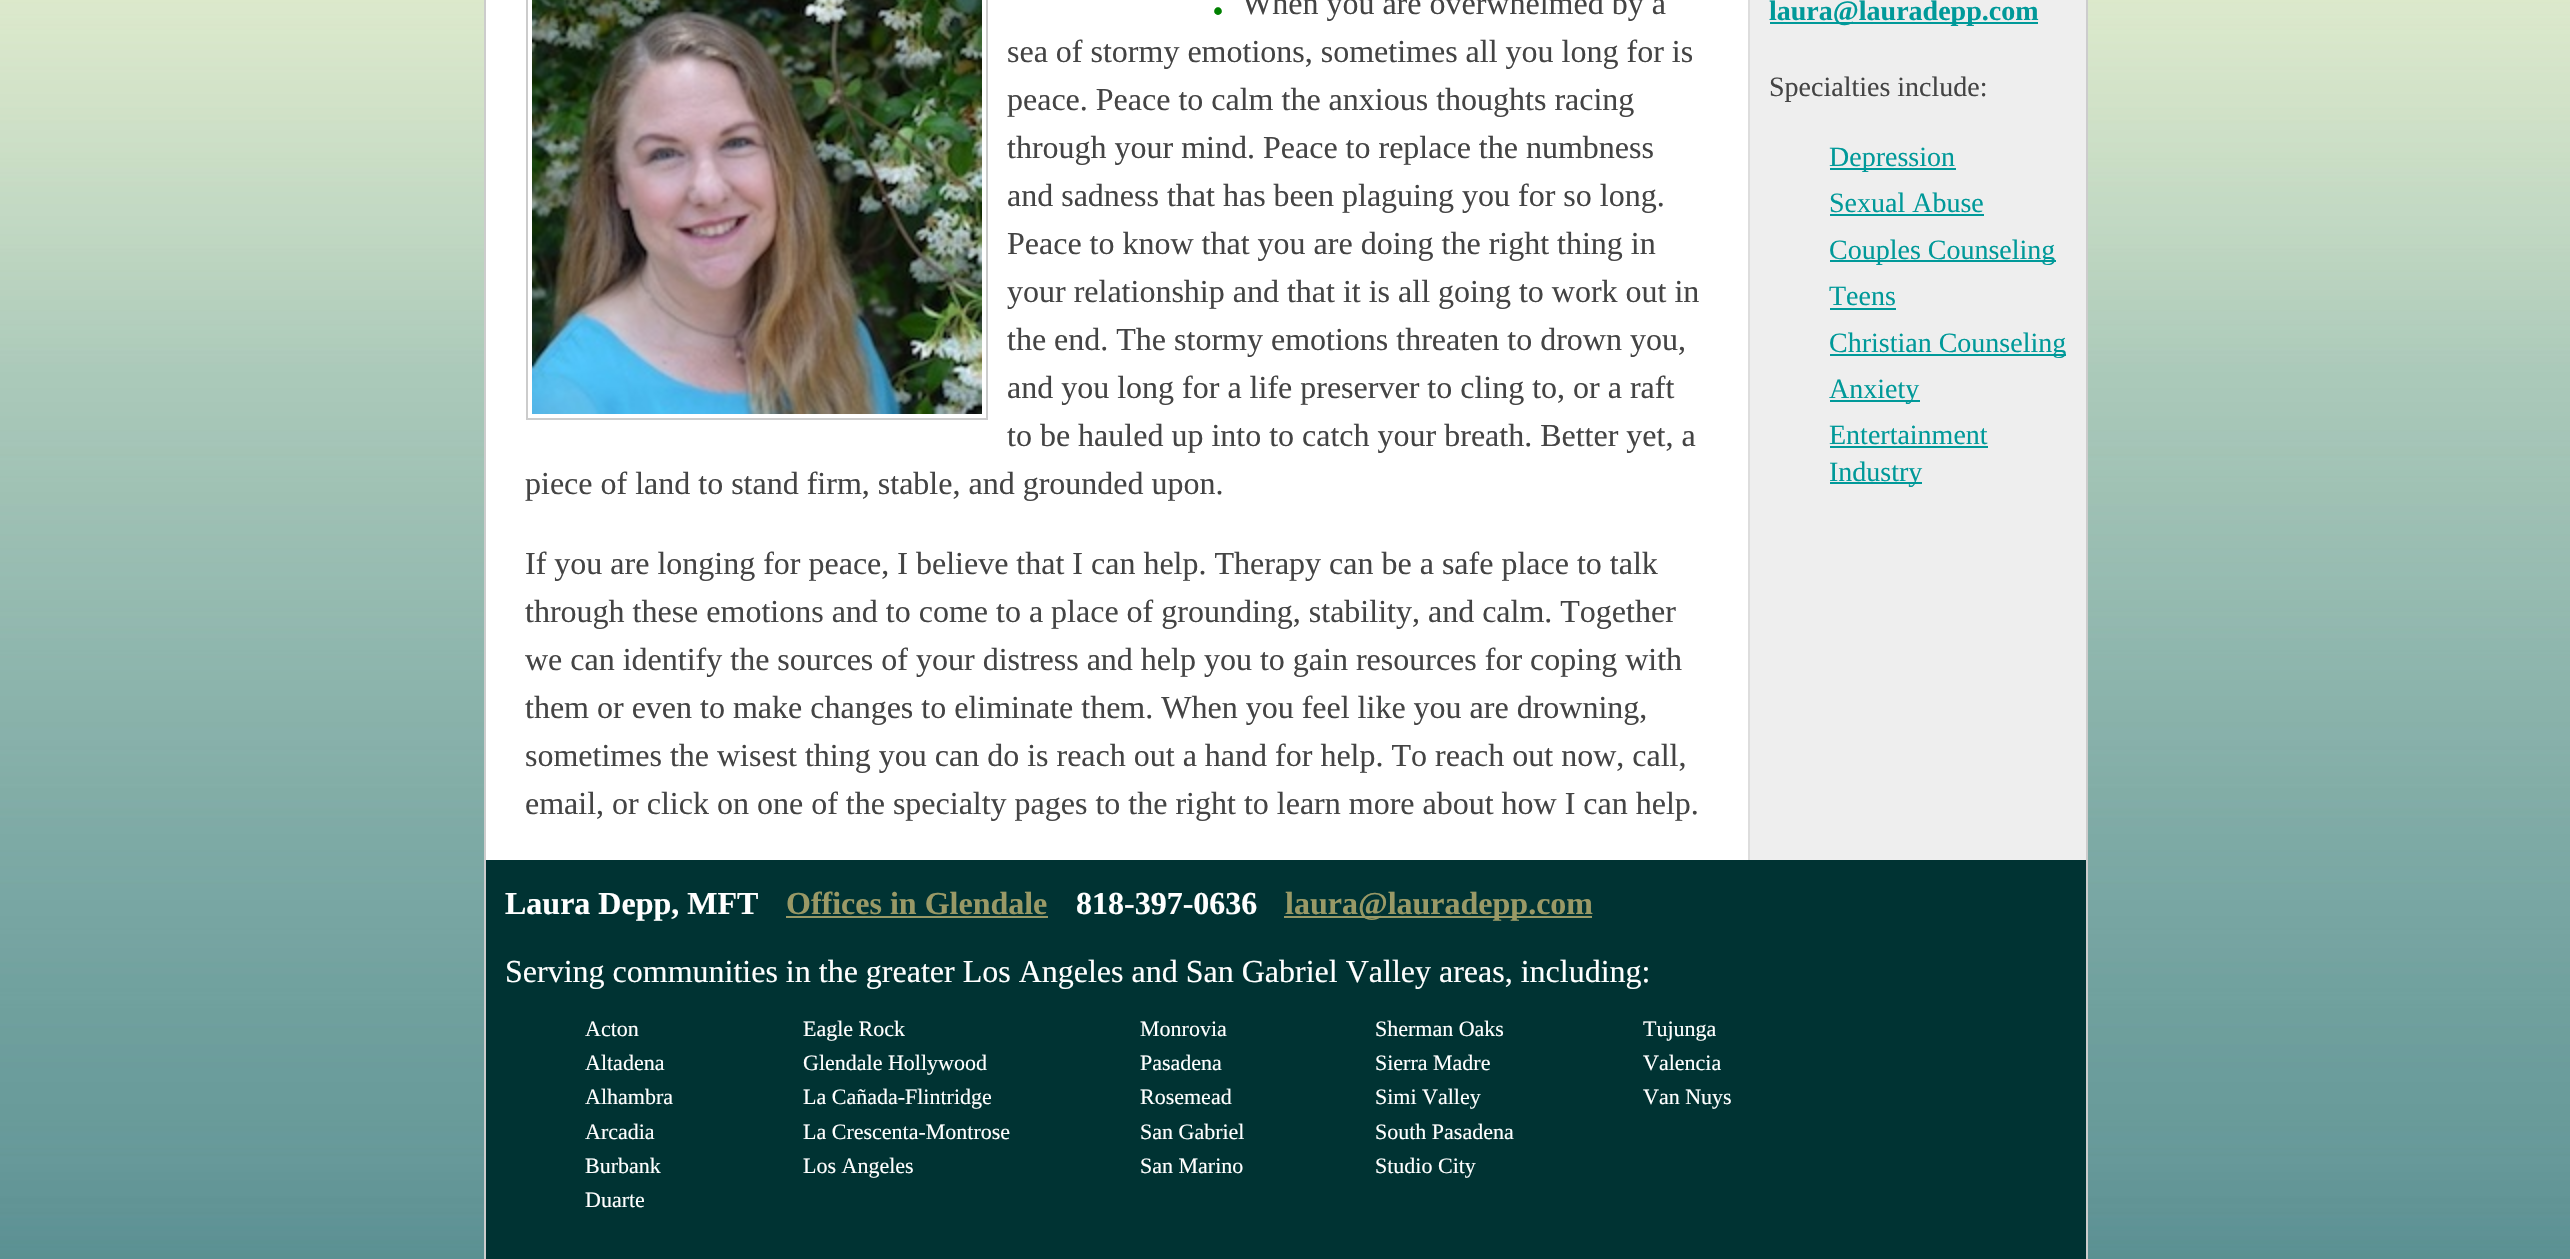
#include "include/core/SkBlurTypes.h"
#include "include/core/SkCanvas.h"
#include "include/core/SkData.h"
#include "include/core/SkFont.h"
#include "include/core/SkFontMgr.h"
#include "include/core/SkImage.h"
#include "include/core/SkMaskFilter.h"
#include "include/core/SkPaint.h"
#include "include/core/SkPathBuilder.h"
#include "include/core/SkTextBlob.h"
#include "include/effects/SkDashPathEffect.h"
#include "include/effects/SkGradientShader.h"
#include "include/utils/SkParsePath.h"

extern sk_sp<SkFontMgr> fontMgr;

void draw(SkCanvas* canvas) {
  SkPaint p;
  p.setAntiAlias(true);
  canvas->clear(SK_ColorWHITE);
  canvas->drawImageRect(SkImages::DeferredFromEncodedData(SkData::MakeFromFileName("images/1.png")), SkRect::MakeLTRB(0, 0, 2570, 1259), SkSamplingOptions());
  p.setColor(SK_ColorWHITE);
  canvas->drawRect(SkRect::MakeLTRB(486, 0, 1748, 860), p);
  p.setStyle(SkPaint::kStroke_Style);
  p.setStrokeWidth(2);
  p.setColor(SkColorSetRGB(204, 204, 204));
  canvas->drawRect(SkRect::MakeLTRB(485, -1, 2087, 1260), p);
  canvas->drawRect(SkRect::MakeLTRB(527, -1, 987, 419), p);
  canvas->drawImageRect(SkImages::DeferredFromEncodedData(SkData::MakeFromFileName("images/2.png")), SkRect::MakeLTRB(532, 0, 982, 414), SkSamplingOptions());
  p.setStyle(SkPaint::kFill_Style);
  p.setColor(SkColorSetRGB(238, 238, 238));
  canvas->drawRect(SkRect::MakeLTRB(1750, 0, 2086, 860), p);
  p.setColor(SkColorSetRGB(221, 221, 221));
  canvas->drawRect(SkRect::MakeLTRB(1748, 0, 1750, 862), p);
  p.setColor(SkColorSetRGB(0, 153, 153));
  canvas->drawRect(SkRect::MakeLTRB(1770, 22, 2038, 24), p);
  canvas->drawRect(SkRect::MakeLTRB(1830, 168, 1956, 170), p);
  canvas->drawRect(SkRect::MakeLTRB(1830, 214, 1984, 216), p);
  canvas->drawRect(SkRect::MakeLTRB(1830, 260, 2056, 262), p);
  canvas->drawRect(SkRect::MakeLTRB(1830, 308, 1896, 310), p);
  canvas->drawRect(SkRect::MakeLTRB(1830, 354, 2066, 356), p);
  canvas->drawRect(SkRect::MakeLTRB(1830, 400, 1920, 402), p);
  canvas->drawRect(SkRect::MakeLTRB(1830, 446, 1988, 448), p);
  canvas->drawRect(SkRect::MakeLTRB(1830, 482, 1922, 484), p);
  p.setColor(SkColorSetRGB(0, 51, 51));
  canvas->drawRect(SkRect::MakeLTRB(486, 860, 2086, 1259), p);
  p.setColor(SkColorSetRGB(153, 153, 102));
  canvas->drawRect(SkRect::MakeLTRB(786, 916, 1048, 918), p);
  canvas->drawRect(SkRect::MakeLTRB(1284, 916, 1592, 918), p);
  SkFont font1(fontMgr->matchFamilyStyle("Liberation Serif", SkFontStyle::Normal()), 64);
  font1.setSubpixel(true);
  p.setColor(SkColorSetRGB(0, 128, 0));
  canvas->drawString(".", 1210, 14, font1, p);
  SkFont font2(fontMgr->matchFamilyStyle("Liberation Serif", SkFontStyle::Normal()), 32);
  font2.setSubpixel(true);
  p.setColor(SkColorSetRGB(68, 68, 68));
  canvas->drawString("When you are overwhelmed by a", 1242, 14, font2, p);
  canvas->drawString("sea of stormy emotions, sometimes all you long for is", 1007, 62, font2, p);
  canvas->drawString("peace. Peace to calm the anxious thoughts racing", 1007, 110, font2, p);
  canvas->drawString("through your mind. Peace to replace the numbness", 1007, 158, font2, p);
  canvas->drawString("and sadness that has been plaguing you for so long.", 1007, 206, font2, p);
  canvas->drawString("Peace to know that you are doing the right thing in", 1007, 254, font2, p);
  canvas->drawString("your relationship and that it is all going to work out in", 1007, 302, font2, p);
  canvas->drawString("the end. The stormy emotions threaten to drown you,", 1007, 350, font2, p);
  canvas->drawString("and you long for a life preserver to cling to, or a raft", 1007, 398, font2, p);
  canvas->drawString("to be hauled up into to catch your breath. Better yet, a", 1007, 446, font2, p);
  canvas->drawString("piece of land to stand firm, stable, and grounded upon.", 525, 494, font2, p);
  canvas->drawString("If you are longing for peace, I believe that I can help. Therapy can be a safe place to talk", 525, 574, font2, p);
  canvas->drawString("through these emotions and to come to a place of grounding, stability, and calm. Together", 525, 622, font2, p);
  canvas->drawString("we can identify the sources of your distress and help you to gain resources for coping with", 525, 670, font2, p);
  canvas->drawString("them or even to make changes to eliminate them. When you feel like you are drowning,", 525, 718, font2, p);
  canvas->drawString("sometimes the wisest thing you can do is reach out a hand for help. To reach out now, call,", 525, 766, font2, p);
  canvas->drawString("email, or click on one of the specialty pages to the right to learn more about how I can help.", 525, 814, font2, p);
  SkFont font3(fontMgr->matchFamilyStyle("Liberation Serif", SkFontStyle::Bold()), 28);
  font3.setSubpixel(true);
  p.setColor(SkColorSetRGB(0, 153, 153));
  canvas->drawString("laura@lauradepp.com", 1769, 20, font3, p);
  SkFont font4(fontMgr->matchFamilyStyle("Liberation Serif", SkFontStyle::Normal()), 28);
  font4.setSubpixel(true);
  p.setColor(SkColorSetRGB(68, 68, 68));
  canvas->drawString("Specialties include:", 1769, 96, font4, p);
  p.setColor(SkColorSetRGB(0, 153, 153));
  canvas->drawString("Depression", 1829, 166, font4, p);
  canvas->drawString("Sexual Abuse", 1829, 212, font4, p);
  canvas->drawString("Couples Counseling", 1829, 259, font4, p);
  canvas->drawString("Teens", 1829, 305, font4, p);
  canvas->drawString("Christian Counseling", 1829, 352, font4, p);
  canvas->drawString("Anxiety", 1829, 398, font4, p);
  canvas->drawString("Entertainment", 1829, 444, font4, p);
  canvas->drawString("Industry", 1829, 481, font4, p);
  SkFont font5(fontMgr->matchFamilyStyle("Liberation Serif", SkFontStyle::Bold()), 32);
  font5.setSubpixel(true);
  p.setColor(SK_ColorWHITE);
  canvas->drawString("Laura Depp, MFT", 505, 914, font5, p);
  p.setColor(SkColorSetRGB(153, 153, 102));
  canvas->drawString("Offices in Glendale", 786, 914, font5, p);
  p.setColor(SK_ColorWHITE);
  canvas->drawString("818-397-0636", 1076, 914, font5, p);
  p.setColor(SkColorSetRGB(153, 153, 102));
  canvas->drawString("laura@lauradepp.com", 1285, 914, font5, p);
  p.setColor(SK_ColorWHITE);
  canvas->drawString("Serving communities in the greater Los Angeles and San Gabriel Valley areas, including:", 505, 982, font2, p);
  SkFont font6(fontMgr->matchFamilyStyle("Liberation Serif", SkFontStyle::Normal()), 22);
  font6.setSubpixel(true);
  canvas->drawString("Acton", 585, 1036, font6, p);
  canvas->drawString("Altadena", 585, 1070, font6, p);
  canvas->drawString("Alhambra", 585, 1104, font6, p);
  canvas->drawString("Arcadia", 585, 1139, font6, p);
  canvas->drawString("Burbank", 585, 1173, font6, p);
  canvas->drawString("Duarte", 585, 1207, font6, p);
  canvas->drawString("Eagle Rock", 803, 1036, font6, p);
  canvas->drawString("Glendale Hollywood", 803, 1070, font6, p);
  canvas->drawString("La Cañada-Flintridge", 803, 1104, font6, p);
  canvas->drawString("La Crescenta-Montrose", 803, 1139, font6, p);
  canvas->drawString("Los Angeles", 803, 1173, font6, p);
  canvas->drawString("Monrovia", 1140, 1036, font6, p);
  canvas->drawString("Pasadena", 1140, 1070, font6, p);
  canvas->drawString("Rosemead", 1140, 1104, font6, p);
  canvas->drawString("San Gabriel", 1140, 1139, font6, p);
  canvas->drawString("San Marino", 1140, 1173, font6, p);
  canvas->drawString("Sherman Oaks", 1375, 1036, font6, p);
  canvas->drawString("Sierra Madre", 1375, 1070, font6, p);
  canvas->drawString("Simi Valley", 1375, 1104, font6, p);
  canvas->drawString("South Pasadena", 1375, 1139, font6, p);
  canvas->drawString("Studio City", 1375, 1173, font6, p);
  canvas->drawString("Tujunga", 1643, 1036, font6, p);
  canvas->drawString("Valencia", 1643, 1070, font6, p);
  canvas->drawString("Van Nuys", 1643, 1104, font6, p);
}
